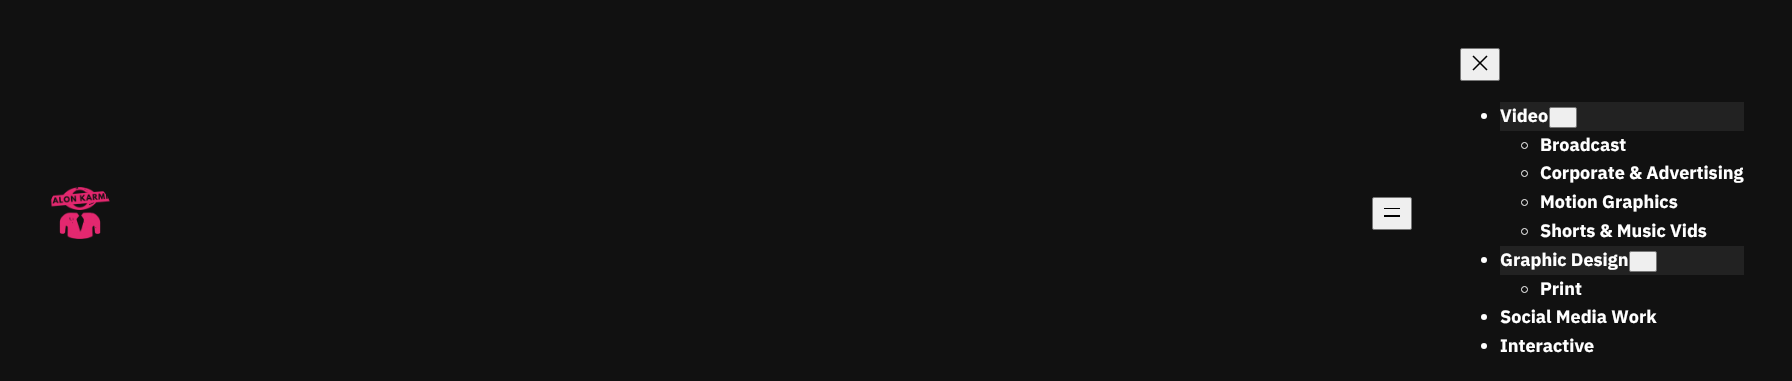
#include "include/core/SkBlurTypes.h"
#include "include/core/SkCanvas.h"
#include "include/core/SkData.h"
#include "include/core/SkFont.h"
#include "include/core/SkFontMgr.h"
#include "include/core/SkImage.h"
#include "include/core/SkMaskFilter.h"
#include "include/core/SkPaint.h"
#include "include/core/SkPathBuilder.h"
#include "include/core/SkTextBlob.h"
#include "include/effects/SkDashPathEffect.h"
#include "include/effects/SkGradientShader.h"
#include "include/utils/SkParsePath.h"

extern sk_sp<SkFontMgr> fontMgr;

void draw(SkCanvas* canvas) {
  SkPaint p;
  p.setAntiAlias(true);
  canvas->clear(SkColorSetRGB(17, 17, 17));
  canvas->drawImageRect(SkImages::DeferredFromEncodedData(SkData::MakeFromFileName("images/1.png")), SkRect::MakeLTRB(50, 187, 110, 239), SkSamplingOptions());
  p.setColor(SkColorSetRGB(239, 239, 239));
  canvas->drawRoundRect(SkRect::MakeLTRB(1372.5f, 197.5f, 1411.5f, 229.5f), 1.5f, 1.5f, p);
  p.setStyle(SkPaint::kStroke_Style);
  p.setStrokeWidth(1);
  p.setColor(SkColorSetRGB(118, 118, 118));
  canvas->drawRoundRect(SkRect::MakeLTRB(1372.5f, 197.5f, 1411.5f, 229.5f), 1.5f, 1.5f, p);
  p.setStyle(SkPaint::kFill_Style);
  p.setColor(SK_ColorBLACK);
  canvas->drawRect(SkRect::MakeLTRB(1384, 208, 1400, 209), p);
  canvas->drawRect(SkRect::MakeLTRB(1384, 215, 1400, 217), p);
  p.setColor(SkColorSetRGB(239, 239, 239));
  canvas->drawRoundRect(SkRect::MakeLTRB(1460.5f, 48.5f, 1499.5f, 80.5f), 1.5f, 1.5f, p);
  p.setStyle(SkPaint::kStroke_Style);
  p.setColor(SkColorSetRGB(118, 118, 118));
  canvas->drawRoundRect(SkRect::MakeLTRB(1460.5f, 48.5f, 1499.5f, 80.5f), 1.5f, 1.5f, p);
  canvas->drawImageRect(SkImages::DeferredFromEncodedData(SkData::MakeFromFileName("images/2.png")), SkRect::MakeLTRB(1472, 55, 1488, 71), SkSamplingOptions());
  p.setStyle(SkPaint::kFill_Style);
  p.setColor(SkColorSetRGB(34, 34, 34));
  canvas->drawRect(SkRect::MakeLTRB(1500, 102, 1744, 131), p);
  p.setColor(SK_ColorWHITE);
  canvas->drawCircle(1484, 116, 3, p);
  p.setColor(SkColorSetRGB(239, 239, 239));
  canvas->drawRoundRect(SkRect::MakeLTRB(1549.5f, 107.5f, 1576.5f, 127.5f), 1.5f, 1.5f, p);
  p.setStyle(SkPaint::kStroke_Style);
  p.setColor(SkColorSetRGB(118, 118, 118));
  canvas->drawRoundRect(SkRect::MakeLTRB(1549.5f, 107.5f, 1576.5f, 127.5f), 1.5f, 1.5f, p);
  p.setColor(SK_ColorWHITE);
  canvas->drawCircle(1524.5f, 145.5f, 3, p);
  canvas->drawCircle(1524.5f, 173.5f, 3, p);
  canvas->drawCircle(1524.5f, 202.5f, 3, p);
  canvas->drawCircle(1524.5f, 231.5f, 3, p);
  p.setStyle(SkPaint::kFill_Style);
  p.setColor(SkColorSetRGB(34, 34, 34));
  canvas->drawRect(SkRect::MakeLTRB(1500, 246, 1744, 275), p);
  p.setColor(SK_ColorWHITE);
  canvas->drawCircle(1484, 260, 3, p);
  p.setColor(SkColorSetRGB(239, 239, 239));
  canvas->drawRoundRect(SkRect::MakeLTRB(1629.5f, 251.5f, 1656.5f, 271.5f), 1.5f, 1.5f, p);
  p.setStyle(SkPaint::kStroke_Style);
  p.setColor(SkColorSetRGB(118, 118, 118));
  canvas->drawRoundRect(SkRect::MakeLTRB(1629.5f, 251.5f, 1656.5f, 271.5f), 1.5f, 1.5f, p);
  p.setColor(SK_ColorWHITE);
  canvas->drawCircle(1524.5f, 289.5f, 3, p);
  p.setStyle(SkPaint::kFill_Style);
  canvas->drawCircle(1484, 317, 3, p);
  canvas->drawCircle(1484, 346, 3, p);
  SkFont font1(fontMgr->matchFamilyStyle("IBM Plex Sans Hebrew", SkFontStyle::Bold()), 18);
  font1.setSubpixel(true);
  canvas->drawString("Video", 1500, 122, font1, p);
  canvas->drawString("Broadcast", 1540, 151, font1, p);
  canvas->drawString("Corporate & Advertising", 1540, 179, font1, p);
  canvas->drawString("Motion Graphics", 1540, 208, font1, p);
  canvas->drawString("Shorts & Music Vids", 1540, 237, font1, p);
  canvas->drawString("Graphic Design", 1500, 266, font1, p);
  canvas->drawString("Print", 1540, 295, font1, p);
  canvas->drawString("Social Media Work", 1500, 323, font1, p);
  canvas->drawString("Interactive", 1500, 352, font1, p);
}
